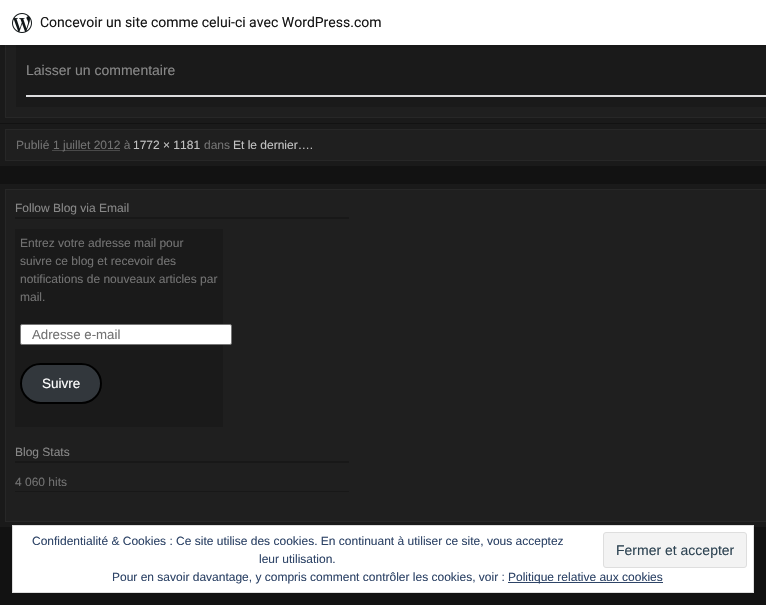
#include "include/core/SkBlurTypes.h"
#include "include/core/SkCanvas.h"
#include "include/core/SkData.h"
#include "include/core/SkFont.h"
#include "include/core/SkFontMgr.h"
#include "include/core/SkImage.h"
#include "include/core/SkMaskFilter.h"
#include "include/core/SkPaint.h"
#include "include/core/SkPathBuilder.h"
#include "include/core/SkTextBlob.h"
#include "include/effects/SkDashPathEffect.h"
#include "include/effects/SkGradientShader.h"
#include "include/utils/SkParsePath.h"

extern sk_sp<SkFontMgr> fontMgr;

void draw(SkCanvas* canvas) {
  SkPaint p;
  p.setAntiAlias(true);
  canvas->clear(SkColorSetRGB(18, 18, 18));
  p.setColor(SkColorSetRGB(26, 26, 26));
  canvas->drawRect(SkRect::MakeLTRB(0, 45, 766, 123), p);
  p.setColor(SkColorSetRGB(31, 31, 31));
  canvas->drawRect(SkRect::MakeLTRB(6, 45, 766, 117), p);
  p.setStyle(SkPaint::kStroke_Style);
  p.setStrokeWidth(1);
  p.setColor(SkColorSetRGB(39, 39, 39));
  canvas->drawRect(SkRect::MakeLTRB(5.5f, -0.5f, 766.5f, 117.5f), p);
  p.setStyle(SkPaint::kFill_Style);
  p.setColor(SkColorSetRGB(26, 26, 26));
  canvas->drawRect(SkRect::MakeLTRB(16, 45, 766, 107), p);
  p.setColor(SkColorSetARGB(20, 0, 0, 0));
  canvas->drawPath(SkPathBuilder().moveTo(1, 45).lineTo(1, 48).lineTo(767, 48).lineTo(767, 3).lineTo(766, 3).lineTo(766, 45).close().detach(), p);
  p.setColor(SK_ColorWHITE);
  canvas->drawRect(SkRect::MakeLTRB(0, 0, 766, 45), p);
  canvas->drawImageRect(SkImages::DeferredFromEncodedData(SkData::MakeFromFileName("images/1.png")), SkRect::MakeLTRB(12, 13, 32, 33), SkSamplingOptions());
  p.setColor(SkColorSetRGB(220, 220, 222));
  canvas->drawRect(SkRect::MakeLTRB(26, 95, 766, 97), p);
  p.setColor(SkColorSetRGB(26, 26, 26));
  canvas->drawRect(SkRect::MakeLTRB(0, 124, 766, 166), p);
  p.setColor(SkColorSetRGB(31, 31, 31));
  canvas->drawRect(SkRect::MakeLTRB(5.5f, 129.5f, 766.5f, 160.5f), p);
  p.setStyle(SkPaint::kStroke_Style);
  p.setColor(SkColorSetRGB(39, 39, 39));
  canvas->drawRect(SkRect::MakeLTRB(5.5f, 129.5f, 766.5f, 160.5f), p);
  p.setColor(SkColorSetRGB(114, 114, 114));
  p.setPathEffect(SkDashPathEffect::Make({{1, 1}}, 0));
  canvas->drawPath(SkPathBuilder().moveTo(52.5f, 150.5f).lineTo(120, 150.5f).detach(), p);
  p.setPathEffect(nullptr);
  p.setStyle(SkPaint::kFill_Style);
  p.setColor(SkColorSetRGB(26, 26, 26));
  canvas->drawRect(SkRect::MakeLTRB(0, 184, 766, 527), p);
  p.setColor(SkColorSetRGB(31, 31, 31));
  canvas->drawRect(SkRect::MakeLTRB(5.5f, 189.5f, 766.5f, 521.5f), p);
  p.setStyle(SkPaint::kStroke_Style);
  p.setColor(SkColorSetRGB(39, 39, 39));
  canvas->drawRect(SkRect::MakeLTRB(5.5f, 189.5f, 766.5f, 521.5f), p);
  p.setStyle(SkPaint::kFill_Style);
  p.setColor(SkColorSetRGB(24, 24, 24));
  canvas->drawRect(SkRect::MakeLTRB(15, 217, 349, 219), p);
  p.setColor(SkColorSetRGB(26, 26, 26));
  canvas->drawRect(SkRect::MakeLTRB(15, 229, 223, 427), p);
  p.setColor(SK_ColorWHITE);
  canvas->drawRoundRect(SkRect::MakeLTRB(20.5f, 324.5f, 231.5f, 344.5f), 1.5f, 1.5f, p);
  p.setStyle(SkPaint::kStroke_Style);
  p.setColor(SkColorSetRGB(118, 118, 118));
  canvas->drawRoundRect(SkRect::MakeLTRB(20.5f, 324.5f, 231.5f, 344.5f), 1.5f, 1.5f, p);
  p.setStyle(SkPaint::kFill_Style);
  p.setColor(SkColorSetRGB(50, 55, 60));
  canvas->drawRoundRect(SkRect::MakeLTRB(21, 364, 101, 403), 19.5f, 19.5f, p);
  p.setStyle(SkPaint::kStroke_Style);
  p.setStrokeWidth(2);
  p.setColor(SK_ColorBLACK);
  canvas->drawRoundRect(SkRect::MakeLTRB(21, 364, 101, 403), 19.5f, 19.5f, p);
  p.setStyle(SkPaint::kFill_Style);
  p.setColor(SkColorSetRGB(24, 24, 24));
  canvas->drawRect(SkRect::MakeLTRB(15, 461, 349, 463), p);
  canvas->drawRect(SkRect::MakeLTRB(15, 491, 349, 492), p);
  p.setColor(SK_ColorWHITE);
  canvas->drawRect(SkRect::MakeLTRB(12.5f, 525.5f, 753.5f, 592.5f), p);
  p.setStyle(SkPaint::kStroke_Style);
  p.setStrokeWidth(1);
  p.setColor(SkColorSetRGB(222, 222, 222));
  canvas->drawRect(SkRect::MakeLTRB(12.5f, 525.5f, 753.5f, 592.5f), p);
  p.setStyle(SkPaint::kFill_Style);
  p.setColor(SkColorSetRGB(243, 243, 243));
  canvas->drawRoundRect(SkRect::MakeLTRB(603.5f, 532.5f, 746.5f, 567.5f), 2.5f, 2.5f, p);
  p.setStyle(SkPaint::kStroke_Style);
  p.setColor(SkColorSetRGB(222, 222, 222));
  canvas->drawRoundRect(SkRect::MakeLTRB(603.5f, 532.5f, 746.5f, 567.5f), 2.5f, 2.5f, p);
  p.setStyle(SkPaint::kFill_Style);
  p.setColor(SkColorSetRGB(46, 68, 103));
  canvas->drawRect(SkRect::MakeLTRB(508, 582, 663, 583), p);
  SkFont font1(fontMgr->matchFamilyStyle("Roboto", SkFontStyle::Normal()), 14);
  font1.setSubpixel(true);
  p.setColor(SkColorSetRGB(23, 23, 23));
  canvas->drawString("Concevoir un site comme celui-ci avec WordPress.com", 40, 27, font1, p);
  SkFont font2(fontMgr->matchFamilyStyle("Liberation Sans", SkFontStyle::Normal()), 14);
  font2.setSubpixel(true);
  p.setColor(SkColorSetRGB(136, 136, 136));
  canvas->drawString("Laisser un commentaire", 26, 75, font2, p);
  SkFont font3(fontMgr->matchFamilyStyle("Liberation Sans", SkFontStyle::Normal()), 12);
  font3.setSubpixel(true);
  p.setColor(SkColorSetRGB(114, 114, 114));
  canvas->drawString("Publié", 16, 149, font3, p);
  canvas->drawString("1 juillet 2012 à", 53, 149, font3, p);
  p.setColor(SkColorSetRGB(194, 194, 194));
  canvas->drawString("1772 × 1181", 133, 149, font3, p);
  p.setColor(SkColorSetRGB(114, 114, 114));
  canvas->drawString("dans", 204, 149, font3, p);
  p.setColor(SkColorSetRGB(194, 194, 194));
  canvas->drawString("Et le dernier….", 233, 149, font3, p);
  p.setColor(SkColorSetRGB(136, 136, 136));
  canvas->drawString("Follow Blog via Email", 15, 212, font3, p);
  p.setColor(SkColorSetRGB(114, 114, 114));
  canvas->drawString("Entrez votre adresse mail pour", 20, 247, font3, p);
  canvas->drawString("suivre ce blog et recevoir des", 20, 265, font3, p);
  canvas->drawString("notifications de nouveaux articles par", 20, 283, font3, p);
  canvas->drawString("mail.", 20, 301, font3, p);
  SkFont font4(fontMgr->matchFamilyStyle("Liberation Sans", SkFontStyle::Normal()), 13.25f);
  font4.setSubpixel(true);
  canvas->drawString("Adresse e-mail", 32, 339, font4, p);
  SkFont font5(fontMgr->matchFamilyStyle("Liberation Sans", SkFontStyle::Normal()), 13.5f);
  font5.setSubpixel(true);
  p.setColor(SK_ColorWHITE);
  canvas->drawString("Suivre", 42, 388, font5, p);
  p.setColor(SkColorSetRGB(136, 136, 136));
  canvas->drawString("Blog Stats", 15, 456, font3, p);
  p.setColor(SkColorSetRGB(114, 114, 114));
  canvas->drawString("4 060 hits", 15, 486, font3, p);
  p.setColor(SkColorSetRGB(46, 68, 103));
  canvas->drawString("Confidentialité & Cookies : Ce site utilise des cookies. En continuant à utiliser ce site, vous acceptez", 32, 545, font3, p);
  p.setColor(SkColorSetRGB(46, 68, 83));
  canvas->drawString("Fermer et accepter", 616, 555, font2, p);
  p.setColor(SkColorSetRGB(46, 68, 103));
  canvas->drawString("leur utilisation.", 259, 563, font3, p);
  canvas->drawString("Pour en savoir davantage, y compris comment contrôler les cookies, voir :", 112, 581, font3, p);
  canvas->drawString("Politique relative aux cookies", 508, 581, font3, p);
}
